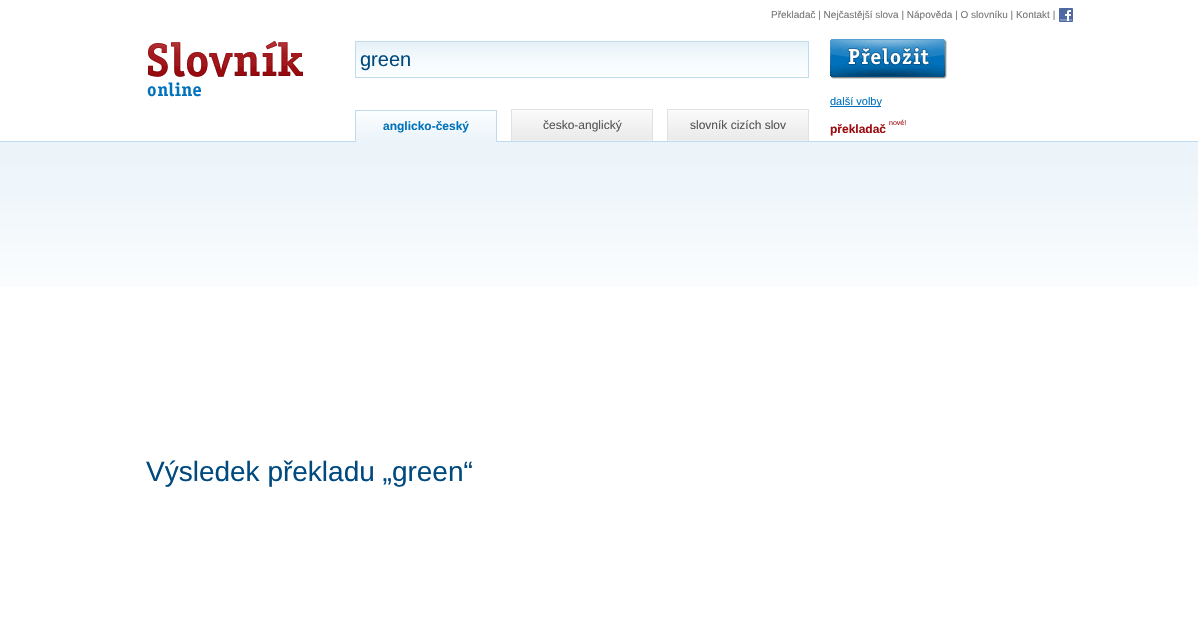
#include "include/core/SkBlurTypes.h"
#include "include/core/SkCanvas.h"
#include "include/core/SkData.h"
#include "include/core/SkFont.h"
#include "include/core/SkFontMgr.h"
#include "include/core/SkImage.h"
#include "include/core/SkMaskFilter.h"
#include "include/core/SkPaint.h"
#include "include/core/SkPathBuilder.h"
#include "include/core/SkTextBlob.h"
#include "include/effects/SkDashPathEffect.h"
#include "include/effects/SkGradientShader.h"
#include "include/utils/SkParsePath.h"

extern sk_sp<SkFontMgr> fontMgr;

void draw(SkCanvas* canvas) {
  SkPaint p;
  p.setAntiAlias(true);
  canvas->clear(SK_ColorWHITE);
  canvas->drawImageRect(SkImages::DeferredFromEncodedData(SkData::MakeFromFileName("images/1.png")), SkRect::MakeLTRB(1059, 8, 1073, 22), SkSamplingOptions());
  canvas->drawImageRect(SkImages::DeferredFromEncodedData(SkData::MakeFromFileName("images/2.png")), SkRect::MakeLTRB(146, 41, 303, 97), SkSamplingOptions());
  canvas->drawImageRect(SkImages::DeferredFromEncodedData(SkData::MakeFromFileName("images/3.png")), SkRect::MakeLTRB(356, 42, 808, 75), SkSamplingOptions());
  p.setStyle(SkPaint::kStroke_Style);
  p.setStrokeWidth(1);
  p.setColor(SkColorSetRGB(191, 220, 238));
  canvas->drawRect(SkRect::MakeLTRB(355.5f, 41.5f, 808.5f, 77.5f), p);
  canvas->drawImageRect(SkImages::DeferredFromEncodedData(SkData::MakeFromFileName("images/4.png")), SkRect::MakeLTRB(830, 39, 947, 79), SkSamplingOptions());
  p.setStyle(SkPaint::kFill_Style);
  p.setColor(SkColorSetRGB(0, 114, 188));
  canvas->drawRect(SkRect::MakeLTRB(830, 106, 881, 107), p);
  p.setColor(SkColorSetRGB(191, 220, 238));
  canvas->drawRect(SkRect::MakeLTRB(0, 141, 1198, 142), p);
  canvas->drawImageRect(SkImages::DeferredFromEncodedData(SkData::MakeFromFileName("images/5.png")), SkRect::MakeLTRB(356, 111, 496, 142), SkSamplingOptions());
  canvas->drawRect(SkRect::MakeLTRB(355, 110, 497, 111), p);
  canvas->drawRect(SkRect::MakeLTRB(496, 110, 497, 142), p);
  canvas->drawRect(SkRect::MakeLTRB(355, 110, 356, 142), p);
  p.setColor(SkColorSetRGB(241, 241, 241));
  canvas->drawRect(SkRect::MakeLTRB(512, 140, 652, 141), p);
  canvas->drawImageRect(SkImages::DeferredFromEncodedData(SkData::MakeFromFileName("images/6.png")), SkRect::MakeLTRB(512, 110, 652, 140), SkSamplingOptions());
  p.setColor(SkColorSetRGB(225, 225, 225));
  canvas->drawRect(SkRect::MakeLTRB(511, 109, 653, 110), p);
  canvas->drawRect(SkRect::MakeLTRB(652, 109, 653, 141), p);
  canvas->drawRect(SkRect::MakeLTRB(511, 109, 512, 141), p);
  p.setColor(SkColorSetRGB(241, 241, 241));
  canvas->drawRect(SkRect::MakeLTRB(668, 140, 808, 141), p);
  canvas->drawImageRect(SkImages::DeferredFromEncodedData(SkData::MakeFromFileName("images/6.png")), SkRect::MakeLTRB(668, 110, 808, 140), SkSamplingOptions());
  p.setColor(SkColorSetRGB(225, 225, 225));
  canvas->drawRect(SkRect::MakeLTRB(667, 109, 809, 110), p);
  canvas->drawRect(SkRect::MakeLTRB(808, 109, 809, 141), p);
  canvas->drawRect(SkRect::MakeLTRB(667, 109, 668, 141), p);
  canvas->drawImageRect(SkImages::DeferredFromEncodedData(SkData::MakeFromFileName("images/7.png")), SkRect::MakeLTRB(0, 142, 1198, 287), SkSamplingOptions());
  SkFont font1(fontMgr->matchFamilyStyle("Liberation Sans", SkFontStyle::Normal()), 10);
  font1.setSubpixel(true);
  p.setColor(SkColorSetRGB(119, 119, 119));
  canvas->drawString("Překladač | Nejčastější slova | Nápověda | O slovníku | Kontakt |", 771, 18, font1, p);
  SkFont font2(fontMgr->matchFamilyStyle("Liberation Sans", SkFontStyle::Normal()), 20);
  font2.setSubpixel(true);
  p.setColor(SkColorSetRGB(0, 74, 128));
  canvas->drawString("green", 360, 66, font2, p);
  SkFont font3(fontMgr->matchFamilyStyle("Liberation Sans", SkFontStyle::Normal()), 11);
  font3.setSubpixel(true);
  p.setColor(SkColorSetRGB(0, 114, 188));
  canvas->drawString("další volby", 830, 105, font3, p);
  SkFont font4(fontMgr->matchFamilyStyle("Liberation Sans", SkFontStyle::Bold()), 12);
  font4.setSubpixel(true);
  canvas->drawString("anglicko-český", 383, 130, font4, p);
  SkFont font5(fontMgr->matchFamilyStyle("Liberation Sans", SkFontStyle::Normal()), 12);
  font5.setSubpixel(true);
  p.setColor(SkColorSetRGB(85, 85, 85));
  canvas->drawString("česko-anglický", 543, 129, font5, p);
  canvas->drawString("slovník cizích slov", 690, 129, font5, p);
  p.setColor(SkColorSetRGB(158, 11, 15));
  canvas->drawString("překladač", 830, 133, font4, p);
  SkFont font6(fontMgr->matchFamilyStyle("Liberation Sans", SkFontStyle::Normal()), 7);
  font6.setSubpixel(true);
  canvas->drawString("nové!", 889, 125, font6, p);
  SkFont font7(fontMgr->matchFamilyStyle("Liberation Sans", SkFontStyle::Normal()), 28);
  font7.setSubpixel(true);
  p.setColor(SkColorSetRGB(0, 74, 128));
  canvas->drawString("Výsledek překladu „green“", 146, 481, font7, p);
}
